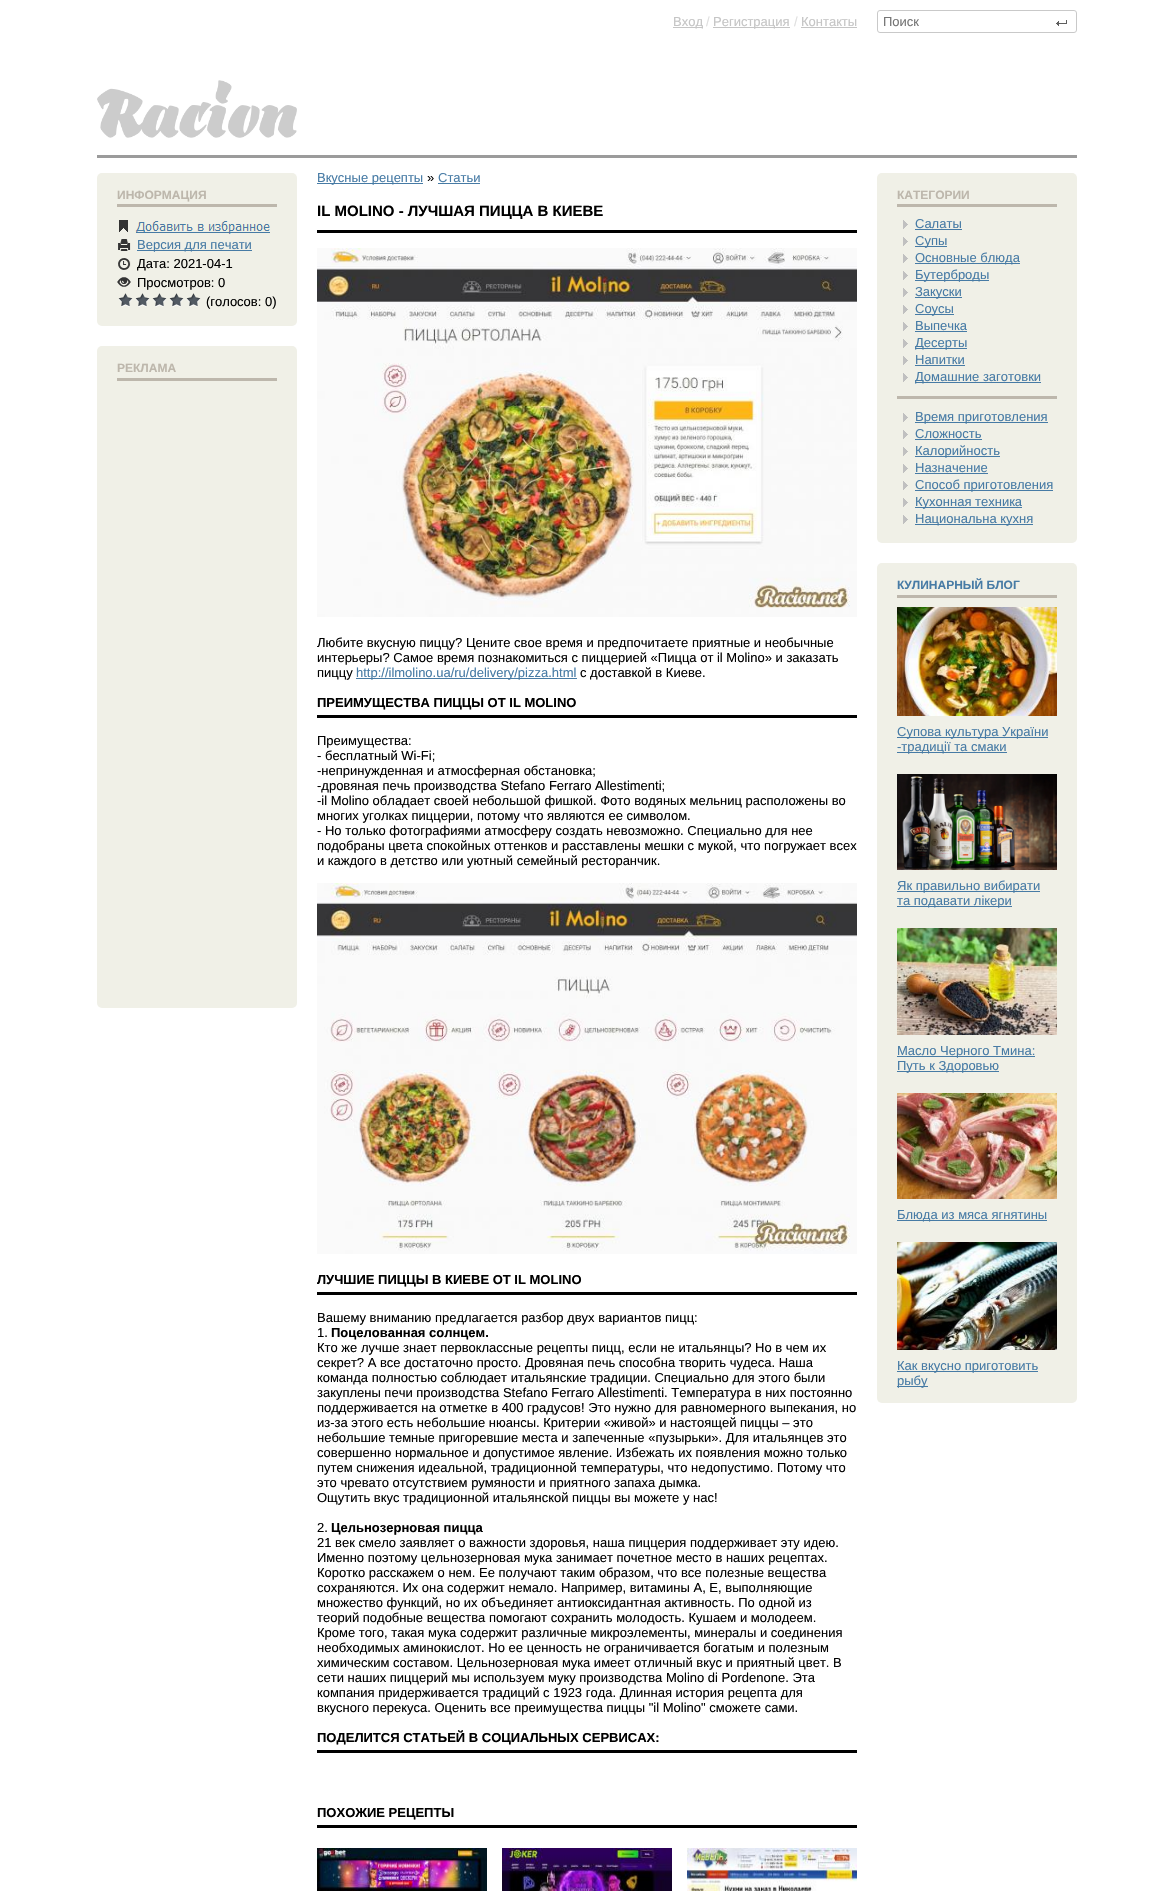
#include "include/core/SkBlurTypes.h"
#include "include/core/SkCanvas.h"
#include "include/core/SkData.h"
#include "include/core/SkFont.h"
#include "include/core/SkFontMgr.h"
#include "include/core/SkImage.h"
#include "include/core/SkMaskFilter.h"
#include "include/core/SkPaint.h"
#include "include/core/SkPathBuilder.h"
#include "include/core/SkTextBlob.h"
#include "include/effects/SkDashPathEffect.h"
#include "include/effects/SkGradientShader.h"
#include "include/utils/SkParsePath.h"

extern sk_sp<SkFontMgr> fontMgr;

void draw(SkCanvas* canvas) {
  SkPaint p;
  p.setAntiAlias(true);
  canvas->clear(SK_ColorWHITE);
  p.setStyle(SkPaint::kStroke_Style);
  p.setStrokeWidth(1);
  p.setColor(SkColorSetRGB(201, 201, 201));
  canvas->drawRoundRect(SkRect::MakeLTRB(877.5f, 10.5f, 1076.5f, 32.5f), 2.5f, 2.5f, p);
  canvas->drawImageRect(SkImages::DeferredFromEncodedData(SkData::MakeFromFileName("images/1.png")), SkRect::MakeLTRB(1056, 20, 1067, 26), SkSamplingOptions());
  canvas->drawImageRect(SkImages::DeferredFromEncodedData(SkData::MakeFromFileName("images/2.png")), SkRect::MakeLTRB(97, 80, 297, 138), SkSamplingOptions());
  p.setStyle(SkPaint::kFill_Style);
  p.setColor(SkColorSetRGB(71, 123, 165));
  canvas->drawRect(SkRect::MakeLTRB(317, 183, 423, 184), p);
  canvas->drawRect(SkRect::MakeLTRB(438, 183, 480, 184), p);
  p.setColor(SkColorSetRGB(155, 155, 155));
  canvas->drawRect(SkRect::MakeLTRB(97, 155, 1077, 158), p);
  p.setColor(SkColorSetRGB(197, 197, 197));
  canvas->drawRect(SkRect::MakeLTRB(673, 27, 703, 28), p);
  canvas->drawRect(SkRect::MakeLTRB(713, 27, 790, 28), p);
  canvas->drawRect(SkRect::MakeLTRB(801, 27, 857, 28), p);
  p.setColor(SkColorSetRGB(240, 240, 231));
  canvas->drawRoundRect(SkRect::MakeLTRB(97, 173, 297, 326), 5, 5, p);
  p.setColor(SkColorSetRGB(189, 183, 172));
  canvas->drawRect(SkRect::MakeLTRB(117, 204, 277, 207), p);
  canvas->drawImageRect(SkImages::DeferredFromEncodedData(SkData::MakeFromFileName("images/3.png")), SkRect::MakeLTRB(119, 220, 270, 234), SkSamplingOptions());
  canvas->drawImageRect(SkImages::DeferredFromEncodedData(SkData::MakeFromFileName("images/4.png")), SkRect::MakeLTRB(118, 239, 131, 251), SkSamplingOptions());
  p.setColor(SkColorSetRGB(71, 123, 165));
  canvas->drawRect(SkRect::MakeLTRB(137, 250, 252, 251), p);
  canvas->drawImageRect(SkImages::DeferredFromEncodedData(SkData::MakeFromFileName("images/5.png")), SkRect::MakeLTRB(118, 258, 131, 270), SkSamplingOptions());
  canvas->drawImageRect(SkImages::DeferredFromEncodedData(SkData::MakeFromFileName("images/6.png")), SkRect::MakeLTRB(117, 277, 131, 287), SkSamplingOptions());
  canvas->drawImageRect(SkImages::DeferredFromEncodedData(SkData::MakeFromFileName("images/7.png")), SkRect::MakeLTRB(118, 293, 201, 307), SkSamplingOptions());
  p.setColor(SkColorSetRGB(240, 240, 231));
  canvas->drawRoundRect(SkRect::MakeLTRB(97, 346, 297, 1008), 5, 5, p);
  p.setColor(SkColorSetRGB(189, 183, 172));
  canvas->drawRect(SkRect::MakeLTRB(117, 378, 277, 381), p);
  p.setColor(SK_ColorBLACK);
  canvas->drawRect(SkRect::MakeLTRB(317, 230, 857, 233), p);
  canvas->drawImageRect(SkImages::DeferredFromEncodedData(SkData::MakeFromFileName("images/8.png")), SkRect::MakeLTRB(317, 248, 857, 617), SkSamplingOptions());
  p.setColor(SkColorSetRGB(71, 123, 165));
  canvas->drawRect(SkRect::MakeLTRB(356, 678, 577, 679), p);
  p.setColor(SK_ColorBLACK);
  canvas->drawRect(SkRect::MakeLTRB(317, 715, 857, 718), p);
  canvas->drawImageRect(SkImages::DeferredFromEncodedData(SkData::MakeFromFileName("images/9.png")), SkRect::MakeLTRB(317, 883, 857, 1254), SkSamplingOptions());
  canvas->drawRect(SkRect::MakeLTRB(317, 1292, 857, 1295), p);
  canvas->drawRect(SkRect::MakeLTRB(317, 1750, 857, 1753), p);
  canvas->drawRect(SkRect::MakeLTRB(317, 1825, 857, 1828), p);
  canvas->drawImageRect(SkImages::DeferredFromEncodedData(SkData::MakeFromFileName("images/10.png")), SkRect::MakeLTRB(317, 1848, 487, 1891), SkSamplingOptions());
  canvas->drawImageRect(SkImages::DeferredFromEncodedData(SkData::MakeFromFileName("images/11.png")), SkRect::MakeLTRB(502, 1848, 672, 1891), SkSamplingOptions());
  canvas->drawImageRect(SkImages::DeferredFromEncodedData(SkData::MakeFromFileName("images/12.png")), SkRect::MakeLTRB(687, 1848, 857, 1891), SkSamplingOptions());
  p.setColor(SkColorSetRGB(240, 240, 231));
  canvas->drawRoundRect(SkRect::MakeLTRB(877, 173, 1077, 543), 5, 5, p);
  p.setColor(SkColorSetRGB(189, 183, 172));
  canvas->drawRect(SkRect::MakeLTRB(897, 204, 1057, 207), p);
  canvas->drawImageRect(SkImages::DeferredFromEncodedData(SkData::MakeFromFileName("images/13.png")), SkRect::MakeLTRB(903, 220, 908, 229), SkSamplingOptions());
  p.setColor(SkColorSetRGB(71, 123, 165));
  canvas->drawRect(SkRect::MakeLTRB(915, 229, 962, 230), p);
  canvas->drawImageRect(SkImages::DeferredFromEncodedData(SkData::MakeFromFileName("images/13.png")), SkRect::MakeLTRB(903, 237, 908, 246), SkSamplingOptions());
  canvas->drawRect(SkRect::MakeLTRB(915, 246, 947, 247), p);
  canvas->drawImageRect(SkImages::DeferredFromEncodedData(SkData::MakeFromFileName("images/13.png")), SkRect::MakeLTRB(903, 254, 908, 263), SkSamplingOptions());
  canvas->drawRect(SkRect::MakeLTRB(915, 263, 1020, 264), p);
  canvas->drawImageRect(SkImages::DeferredFromEncodedData(SkData::MakeFromFileName("images/13.png")), SkRect::MakeLTRB(903, 271, 908, 280), SkSamplingOptions());
  canvas->drawRect(SkRect::MakeLTRB(915, 280, 989, 281), p);
  canvas->drawImageRect(SkImages::DeferredFromEncodedData(SkData::MakeFromFileName("images/13.png")), SkRect::MakeLTRB(903, 288, 908, 297), SkSamplingOptions());
  canvas->drawRect(SkRect::MakeLTRB(915, 297, 962, 298), p);
  canvas->drawImageRect(SkImages::DeferredFromEncodedData(SkData::MakeFromFileName("images/13.png")), SkRect::MakeLTRB(903, 305, 908, 314), SkSamplingOptions());
  canvas->drawRect(SkRect::MakeLTRB(915, 314, 954, 315), p);
  canvas->drawImageRect(SkImages::DeferredFromEncodedData(SkData::MakeFromFileName("images/13.png")), SkRect::MakeLTRB(903, 322, 908, 331), SkSamplingOptions());
  canvas->drawRect(SkRect::MakeLTRB(915, 331, 967, 332), p);
  canvas->drawImageRect(SkImages::DeferredFromEncodedData(SkData::MakeFromFileName("images/13.png")), SkRect::MakeLTRB(903, 339, 908, 348), SkSamplingOptions());
  canvas->drawRect(SkRect::MakeLTRB(915, 348, 967, 349), p);
  canvas->drawImageRect(SkImages::DeferredFromEncodedData(SkData::MakeFromFileName("images/13.png")), SkRect::MakeLTRB(903, 356, 908, 365), SkSamplingOptions());
  canvas->drawRect(SkRect::MakeLTRB(915, 365, 965, 366), p);
  canvas->drawImageRect(SkImages::DeferredFromEncodedData(SkData::MakeFromFileName("images/13.png")), SkRect::MakeLTRB(903, 373, 908, 382), SkSamplingOptions());
  canvas->drawRect(SkRect::MakeLTRB(915, 382, 1041, 383), p);
  p.setColor(SkColorSetRGB(189, 183, 172));
  canvas->drawRect(SkRect::MakeLTRB(897, 396, 1057, 399), p);
  canvas->drawImageRect(SkImages::DeferredFromEncodedData(SkData::MakeFromFileName("images/13.png")), SkRect::MakeLTRB(903, 413, 908, 422), SkSamplingOptions());
  p.setColor(SkColorSetRGB(71, 123, 165));
  canvas->drawRect(SkRect::MakeLTRB(915, 422, 1048, 423), p);
  canvas->drawImageRect(SkImages::DeferredFromEncodedData(SkData::MakeFromFileName("images/13.png")), SkRect::MakeLTRB(903, 430, 908, 439), SkSamplingOptions());
  canvas->drawRect(SkRect::MakeLTRB(915, 439, 982, 440), p);
  canvas->drawImageRect(SkImages::DeferredFromEncodedData(SkData::MakeFromFileName("images/13.png")), SkRect::MakeLTRB(903, 447, 908, 456), SkSamplingOptions());
  canvas->drawRect(SkRect::MakeLTRB(915, 456, 1000, 457), p);
  canvas->drawImageRect(SkImages::DeferredFromEncodedData(SkData::MakeFromFileName("images/13.png")), SkRect::MakeLTRB(903, 464, 908, 473), SkSamplingOptions());
  canvas->drawRect(SkRect::MakeLTRB(915, 473, 988, 474), p);
  canvas->drawImageRect(SkImages::DeferredFromEncodedData(SkData::MakeFromFileName("images/13.png")), SkRect::MakeLTRB(903, 481, 908, 490), SkSamplingOptions());
  canvas->drawRect(SkRect::MakeLTRB(915, 490, 1053, 491), p);
  canvas->drawImageRect(SkImages::DeferredFromEncodedData(SkData::MakeFromFileName("images/13.png")), SkRect::MakeLTRB(903, 498, 908, 507), SkSamplingOptions());
  canvas->drawRect(SkRect::MakeLTRB(915, 507, 1022, 508), p);
  canvas->drawImageRect(SkImages::DeferredFromEncodedData(SkData::MakeFromFileName("images/13.png")), SkRect::MakeLTRB(903, 515, 908, 524), SkSamplingOptions());
  canvas->drawRect(SkRect::MakeLTRB(915, 524, 1033, 525), p);
  p.setColor(SkColorSetRGB(240, 240, 231));
  canvas->drawRoundRect(SkRect::MakeLTRB(877, 563, 1077, 1403), 5, 5, p);
  p.setColor(SkColorSetRGB(189, 183, 172));
  canvas->drawRect(SkRect::MakeLTRB(897, 595, 1057, 598), p);
  canvas->drawImageRect(SkImages::DeferredFromEncodedData(SkData::MakeFromFileName("images/14.png")), SkRect::MakeLTRB(897, 607, 1057, 716), SkSamplingOptions());
  p.setColor(SkColorSetRGB(71, 123, 165));
  canvas->drawRect(SkRect::MakeLTRB(897, 737, 1048, 738), p);
  canvas->drawRect(SkRect::MakeLTRB(897, 752, 1007, 753), p);
  canvas->drawImageRect(SkImages::DeferredFromEncodedData(SkData::MakeFromFileName("images/15.png")), SkRect::MakeLTRB(897, 774, 1057, 870), SkSamplingOptions());
  canvas->drawRect(SkRect::MakeLTRB(897, 891, 1040, 892), p);
  canvas->drawRect(SkRect::MakeLTRB(897, 906, 1012, 907), p);
  canvas->drawImageRect(SkImages::DeferredFromEncodedData(SkData::MakeFromFileName("images/16.png")), SkRect::MakeLTRB(897, 928, 1057, 1035), SkSamplingOptions());
  canvas->drawRect(SkRect::MakeLTRB(897, 1056, 1035, 1057), p);
  canvas->drawRect(SkRect::MakeLTRB(897, 1071, 999, 1072), p);
  canvas->drawImageRect(SkImages::DeferredFromEncodedData(SkData::MakeFromFileName("images/17.png")), SkRect::MakeLTRB(897, 1093, 1057, 1199), SkSamplingOptions());
  canvas->drawRect(SkRect::MakeLTRB(897, 1220, 1047, 1221), p);
  canvas->drawImageRect(SkImages::DeferredFromEncodedData(SkData::MakeFromFileName("images/18.png")), SkRect::MakeLTRB(897, 1242, 1057, 1350), SkSamplingOptions());
  canvas->drawRect(SkRect::MakeLTRB(897, 1371, 1038, 1372), p);
  canvas->drawRect(SkRect::MakeLTRB(897, 1386, 928, 1387), p);
  SkFont font1(fontMgr->matchFamilyStyle("Liberation Sans", SkFontStyle::Normal()), 13);
  font1.setSubpixel(true);
  p.setColor(SkColorSetRGB(117, 117, 117));
  canvas->drawString("Поиск", 883, 26, font1, p);
  p.setColor(SkColorSetRGB(71, 123, 165));
  canvas->drawString("Вкусные рецепты", 317, 182, font1, p);
  p.setColor(SK_ColorBLACK);
  canvas->drawString("»", 427, 182, font1, p);
  p.setColor(SkColorSetRGB(71, 123, 165));
  canvas->drawString("Статьи", 438, 182, font1, p);
  p.setColor(SkColorSetRGB(197, 197, 197));
  canvas->drawString("Вход", 673, 26, font1, p);
  p.setColor(SkColorSetRGB(223, 223, 223));
  canvas->drawString("/", 706, 26, font1, p);
  p.setColor(SkColorSetRGB(197, 197, 197));
  canvas->drawString("Регистрация", 713, 26, font1, p);
  p.setColor(SkColorSetRGB(223, 223, 223));
  canvas->drawString("/", 794, 26, font1, p);
  p.setColor(SkColorSetRGB(197, 197, 197));
  canvas->drawString("Контакты", 801, 26, font1, p);
  SkFont font2(fontMgr->matchFamilyStyle("Liberation Sans", SkFontStyle::Bold()), 12);
  font2.setSubpixel(true);
  p.setColor(SkColorSetRGB(189, 183, 172));
  canvas->drawString("ИНФОРМАЦИЯ", 117, 199, font2, p);
  p.setColor(SkColorSetRGB(71, 123, 165));
  canvas->drawString("Версия для печати", 137, 249, font1, p);
  p.setColor(SK_ColorBLACK);
  canvas->drawString("Дата: 2021-04-1", 137, 268, font1, p);
  canvas->drawString("Просмотров: 0", 137, 287, font1, p);
  canvas->drawString("(голосов: 0)", 206, 306, font1, p);
  p.setColor(SkColorSetRGB(189, 183, 172));
  canvas->drawString("РЕКЛАМА", 117, 372, font2, p);
  SkFont font3(fontMgr->matchFamilyStyle("Liberation Sans", SkFontStyle::Bold()), 15);
  font3.setSubpixel(true);
  p.setColor(SK_ColorBLACK);
  canvas->drawString("IL MOLINO - ЛУЧШАЯ ПИЦЦА В КИЕВЕ", 317, 216, font3, p);
  canvas->drawString("Любите вкусную пиццу? Цените свое время и предпочитаете приятные и необычные", 317, 647, font1, p);
  canvas->drawString("интерьеры? Самое время познакомиться с пиццерией «Пицца от il Molino» и заказать", 317, 662, font1, p);
  canvas->drawString("пиццу", 317, 677, font1, p);
  p.setColor(SkColorSetRGB(71, 123, 165));
  canvas->drawString("http://ilmolino.ua/ru/delivery/pizza.html", 356, 677, font1, p);
  p.setColor(SK_ColorBLACK);
  canvas->drawString("с доставкой в Киеве.", 580, 677, font1, p);
  SkFont font4(fontMgr->matchFamilyStyle("Liberation Sans", SkFontStyle::Bold()), 13);
  font4.setSubpixel(true);
  canvas->drawString("ПРЕИМУЩЕСТВА ПИЦЦЫ ОТ IL MOLINO", 317, 707, font4, p);
  canvas->drawString("Преимущества:", 317, 745, font1, p);
  canvas->drawString("- бесплатный Wi-Fi;", 317, 760, font1, p);
  canvas->drawString("-непринужденная и атмосферная обстановка;", 317, 775, font1, p);
  canvas->drawString("-дровяная печь производства Stefano Ferraro Allestimenti;", 317, 790, font1, p);
  canvas->drawString("-il Molino обладает своей небольшой фишкой. Фото водяных мельниц расположены во", 317, 805, font1, p);
  canvas->drawString("многих уголках пиццерии, потому что являются ее символом.", 317, 820, font1, p);
  canvas->drawString("- Но только фотографиями атмосферу создать невозможно. Специально для нее", 317, 835, font1, p);
  canvas->drawString("подобраны цвета спокойных оттенков и расставлены мешки с мукой, что погружает всех", 317, 850, font1, p);
  canvas->drawString("и каждого в детство или уютный семейный ресторанчик.", 317, 865, font1, p);
  canvas->drawString("ЛУЧШИЕ ПИЦЦЫ В КИЕВЕ ОТ IL MOLINO", 317, 1284, font4, p);
  canvas->drawString("Вашему вниманию предлагается разбор двух вариантов пицц:", 317, 1322, font1, p);
  canvas->drawString("1.", 317, 1337, font1, p);
  canvas->drawString("Поцелованная солнцем.", 331, 1337, font4, p);
  canvas->drawString("Кто же лучше знает первоклассные рецепты пицц, если не итальянцы? Но в чем их", 317, 1352, font1, p);
  canvas->drawString("секрет? А все достаточно просто. Дровяная печь способна творить чудеса. Наша", 317, 1367, font1, p);
  canvas->drawString("команда полностью соблюдает итальянские традиции. Специально для этого были", 317, 1382, font1, p);
  canvas->drawString("закуплены печи производства Stefano Ferraro Allestimenti. Температура в них постоянно", 317, 1397, font1, p);
  canvas->drawString("поддерживается на отметке в 400 градусов! Это нужно для равномерного выпекания, но", 317, 1412, font1, p);
  canvas->drawString("из-за этого есть небольшие нюансы. Критерии «живой» и настоящей пиццы – это", 317, 1427, font1, p);
  canvas->drawString("небольшие темные пригоревшие места и запеченные «пузырьки». Для итальянцев это", 317, 1442, font1, p);
  canvas->drawString("совершенно нормальное и допустимое явление. Избежать их появления можно только", 317, 1457, font1, p);
  canvas->drawString("путем снижения идеальной, традиционной температуры, что недопустимо. Потому что", 317, 1472, font1, p);
  canvas->drawString("это чревато отсутствием румяности и приятного запаха дымка.", 317, 1487, font1, p);
  canvas->drawString("Ощутить вкус традиционной итальянской пиццы вы можете у нас!", 317, 1502, font1, p);
  canvas->drawString("2.", 317, 1532, font1, p);
  canvas->drawString("Цельнозерновая пицца", 331, 1532, font4, p);
  canvas->drawString("21 век смело заявляет о важности здоровья, наша пиццерия поддерживает эту идею.", 317, 1547, font1, p);
  canvas->drawString("Именно поэтому цельнозерновая мука занимает почетное место в наших рецептах.", 317, 1562, font1, p);
  canvas->drawString("Коротко расскажем о нем. Ее получают таким образом, что все полезные вещества", 317, 1577, font1, p);
  canvas->drawString("сохраняются. Их она содержит немало. Например, витамины А, Е, выполняющие", 317, 1592, font1, p);
  canvas->drawString("множество функций, но их объединяет антиоксидантная активность. По одной из", 317, 1607, font1, p);
  canvas->drawString("теорий подобные вещества помогают сохранить молодость. Кушаем и молодеем.", 317, 1622, font1, p);
  canvas->drawString("Кроме того, такая мука содержит различные микроэлементы, минералы и соединения", 317, 1637, font1, p);
  canvas->drawString("необходимых аминокислот. Но ее ценность не ограничивается богатым и полезным", 317, 1652, font1, p);
  canvas->drawString("химическим составом. Цельнозерновая мука имеет отличный вкус и приятный цвет. В", 317, 1667, font1, p);
  canvas->drawString("сети наших пиццерий мы используем муку производства Molino di Pordenone. Эта", 317, 1682, font1, p);
  canvas->drawString("компания придерживается традиций с 1923 года. Длинная история рецепта для", 317, 1697, font1, p);
  canvas->drawString("вкусного перекуса. Оценить все преимущества пиццы \"il Molino\" сможете сами.", 317, 1712, font1, p);
  canvas->drawString("ПОДЕЛИТСЯ СТАТЬЕЙ В СОЦИАЛЬНЫХ СЕРВИСАХ:", 317, 1742, font4, p);
  canvas->drawString("ПОХОЖИЕ РЕЦЕПТЫ", 317, 1817, font4, p);
  p.setColor(SkColorSetRGB(189, 183, 172));
  canvas->drawString("КАТЕГОРИИ", 897, 199, font2, p);
  p.setColor(SkColorSetRGB(71, 123, 165));
  canvas->drawString("Салаты", 915, 228, font1, p);
  canvas->drawString("Супы", 915, 245, font1, p);
  canvas->drawString("Основные блюда", 915, 262, font1, p);
  canvas->drawString("Бутерброды", 915, 279, font1, p);
  canvas->drawString("Закуски", 915, 296, font1, p);
  canvas->drawString("Соусы", 915, 313, font1, p);
  canvas->drawString("Выпечка", 915, 330, font1, p);
  canvas->drawString("Десерты", 915, 347, font1, p);
  canvas->drawString("Напитки", 915, 364, font1, p);
  canvas->drawString("Домашние заготовки", 915, 381, font1, p);
  canvas->drawString("Время приготовления", 915, 421, font1, p);
  canvas->drawString("Сложность", 915, 438, font1, p);
  canvas->drawString("Калорийность", 915, 455, font1, p);
  canvas->drawString("Назначение", 915, 472, font1, p);
  canvas->drawString("Способ приготовления", 915, 489, font1, p);
  canvas->drawString("Кухонная техника", 915, 506, font1, p);
  canvas->drawString("Национальна кухня", 915, 523, font1, p);
  canvas->drawString("КУЛИНАРНЫЙ БЛОГ", 897, 589, font2, p);
  canvas->drawString("Супова культура України", 897, 736, font1, p);
  canvas->drawString("-традиції та смаки", 897, 751, font1, p);
  canvas->drawString("Як правильно вибирати", 897, 890, font1, p);
  canvas->drawString("та подавати лікери", 897, 905, font1, p);
  canvas->drawString("Масло Черного Тмина:", 897, 1055, font1, p);
  canvas->drawString("Путь к Здоровью", 897, 1070, font1, p);
  canvas->drawString("Блюда из мяса ягнятины", 897, 1219, font1, p);
  canvas->drawString("Как вкусно приготовить", 897, 1370, font1, p);
  canvas->drawString("рыбу", 897, 1385, font1, p);
}
